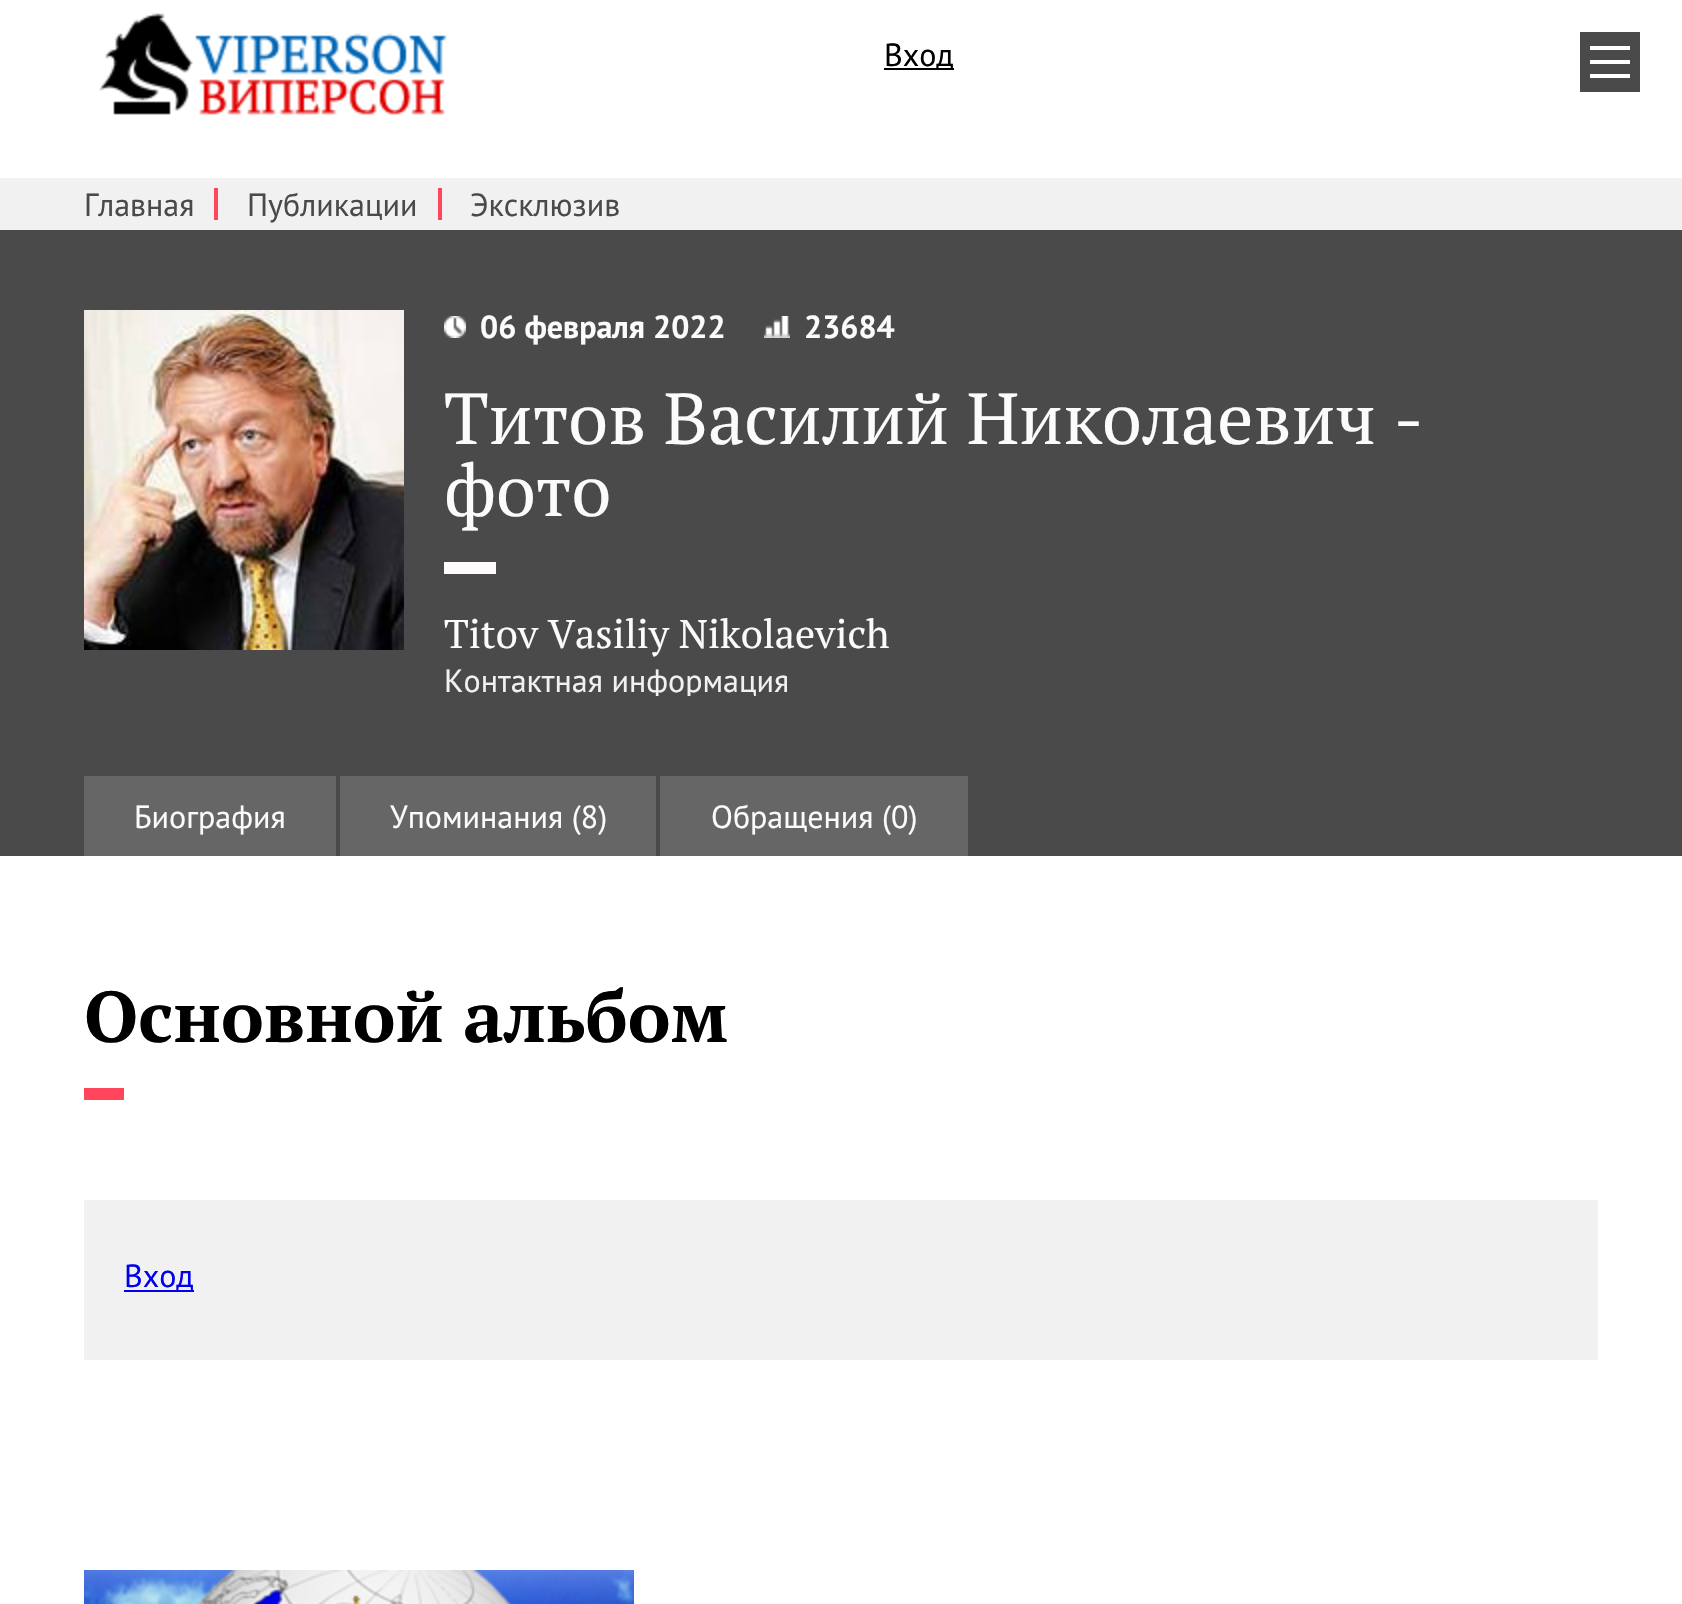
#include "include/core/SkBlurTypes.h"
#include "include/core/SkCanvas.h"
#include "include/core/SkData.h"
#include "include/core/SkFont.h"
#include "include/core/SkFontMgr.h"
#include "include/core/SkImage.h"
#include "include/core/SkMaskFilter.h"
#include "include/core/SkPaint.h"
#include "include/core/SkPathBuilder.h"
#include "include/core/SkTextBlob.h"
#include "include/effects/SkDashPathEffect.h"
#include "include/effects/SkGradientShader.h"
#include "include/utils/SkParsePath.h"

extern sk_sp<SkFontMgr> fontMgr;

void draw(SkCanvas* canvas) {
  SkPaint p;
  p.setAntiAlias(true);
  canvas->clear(SK_ColorWHITE);
  canvas->drawImageRect(SkImages::DeferredFromEncodedData(SkData::MakeFromFileName("images/1.png")), SkRect::MakeLTRB(99, 13, 447, 115), SkSamplingOptions());
  p.setColor(SkColorSetRGB(74, 74, 74));
  canvas->drawRect(SkRect::MakeLTRB(1580, 32, 1640, 92), p);
  p.setColor(SK_ColorWHITE);
  canvas->drawRect(SkRect::MakeLTRB(1590, 46, 1630, 50), p);
  canvas->drawRect(SkRect::MakeLTRB(1590, 74, 1630, 78), p);
  canvas->drawRect(SkRect::MakeLTRB(1590, 60, 1630, 64), p);
  p.setColor(SK_ColorBLACK);
  canvas->drawRect(SkRect::MakeLTRB(884, 68, 954, 70), p);
  p.setColor(SkColorSetRGB(241, 241, 241));
  canvas->drawRect(SkRect::MakeLTRB(0, 178, 1682, 230), p);
  p.setColor(SkColorSetRGB(255, 70, 93));
  canvas->drawRect(SkRect::MakeLTRB(214, 188, 218, 220), p);
  canvas->drawRect(SkRect::MakeLTRB(438, 188, 442, 220), p);
  p.setColor(SkColorSetRGB(74, 74, 74));
  canvas->drawRect(SkRect::MakeLTRB(0, 230, 1682, 856), p);
  canvas->drawImageRect(SkImages::DeferredFromEncodedData(SkData::MakeFromFileName("images/2.png")), SkRect::MakeLTRB(84, 310, 404, 650), SkSamplingOptions());
  canvas->drawImageRect(SkImages::DeferredFromEncodedData(SkData::MakeFromFileName("images/3.png")), SkRect::MakeLTRB(444, 316, 466, 338), SkSamplingOptions());
  canvas->drawImageRect(SkImages::DeferredFromEncodedData(SkData::MakeFromFileName("images/4.png")), SkRect::MakeLTRB(764, 316, 790, 338), SkSamplingOptions());
  p.setColor(SkColorSetRGB(253, 251, 251));
  canvas->drawRect(SkRect::MakeLTRB(444, 562, 496, 574), p);
  p.setColor(SkColorSetRGB(102, 102, 102));
  canvas->drawRect(SkRect::MakeLTRB(84, 776, 336, 856), p);
  canvas->drawRect(SkRect::MakeLTRB(340, 776, 656, 856), p);
  canvas->drawRect(SkRect::MakeLTRB(660, 776, 968, 856), p);
  p.setColor(SkColorSetRGB(255, 70, 93));
  canvas->drawRect(SkRect::MakeLTRB(84, 1088, 124, 1100), p);
  p.setColor(SkColorSetRGB(241, 241, 241));
  canvas->drawRect(SkRect::MakeLTRB(84, 1200, 1598, 1360), p);
  p.setColor(SkColorSetRGB(0, 0, 238));
  canvas->drawRect(SkRect::MakeLTRB(124, 1290, 194, 1292), p);
  canvas->drawImageRect(SkImages::DeferredFromEncodedData(SkData::MakeFromFileName("images/5.png")), SkRect::MakeLTRB(84, 1570, 634, 1604), SkSamplingOptions());
  SkFont font1(fontMgr->matchFamilyStyle("PT Sans", SkFontStyle::Normal()), 32);
  font1.setSubpixel(true);
  p.setColor(SK_ColorBLACK);
  canvas->drawString("Вход", 884, 66, font1, p);
  p.setColor(SkColorSetRGB(74, 74, 74));
  canvas->drawString("Главная", 84, 216, font1, p);
  canvas->drawString("Публикации", 247, 216, font1, p);
  canvas->drawString("Эксклюзив", 470, 216, font1, p);
  SkFont font2(fontMgr->matchFamilyStyle("PT Sans", SkFontStyle::Bold()), 32);
  font2.setSubpixel(true);
  p.setColor(SkColorSetRGB(251, 251, 251));
  canvas->drawString("06 февраля 2022", 480, 338, font2, p);
  canvas->drawString("23684", 804, 338, font2, p);
  SkFont font3(fontMgr->matchFamilyStyle("PT Serif", SkFontStyle::Normal()), 72);
  font3.setSubpixel(true);
  canvas->drawString("Титов Василий Николаевич -", 444, 444, font3, p);
  canvas->drawString("фото", 444, 516, font3, p);
  SkFont font4(fontMgr->matchFamilyStyle("PT Serif", SkFontStyle::Normal()), 40);
  font4.setSubpixel(true);
  canvas->drawString("Titov Vasiliy Nikolaevich", 444, 648, font4, p);
  canvas->save();
  canvas->clipRect(SkRect::MakeLTRB(444, 310, 1598, 696));
  p.setColor(SkColorSetRGB(241, 241, 241));
  canvas->drawString("Контактная информация", 444, 692, font1, p);
  canvas->restore();
  p.setColor(SkColorSetRGB(251, 251, 251));
  canvas->drawString("Биография", 134, 828, font1, p);
  canvas->drawString("Упоминания (8)", 390, 828, font1, p);
  canvas->drawString("Обращения (0)", 711, 828, font1, p);
  SkFont font5(fontMgr->matchFamilyStyle("PT Serif", SkFontStyle::Bold()), 72);
  font5.setSubpixel(true);
  p.setColor(SK_ColorBLACK);
  canvas->drawString("Основной альбом", 84, 1042, font5, p);
  p.setColor(SkColorSetRGB(0, 0, 238));
  canvas->drawString("Вход", 124, 1287, font1, p);
}
